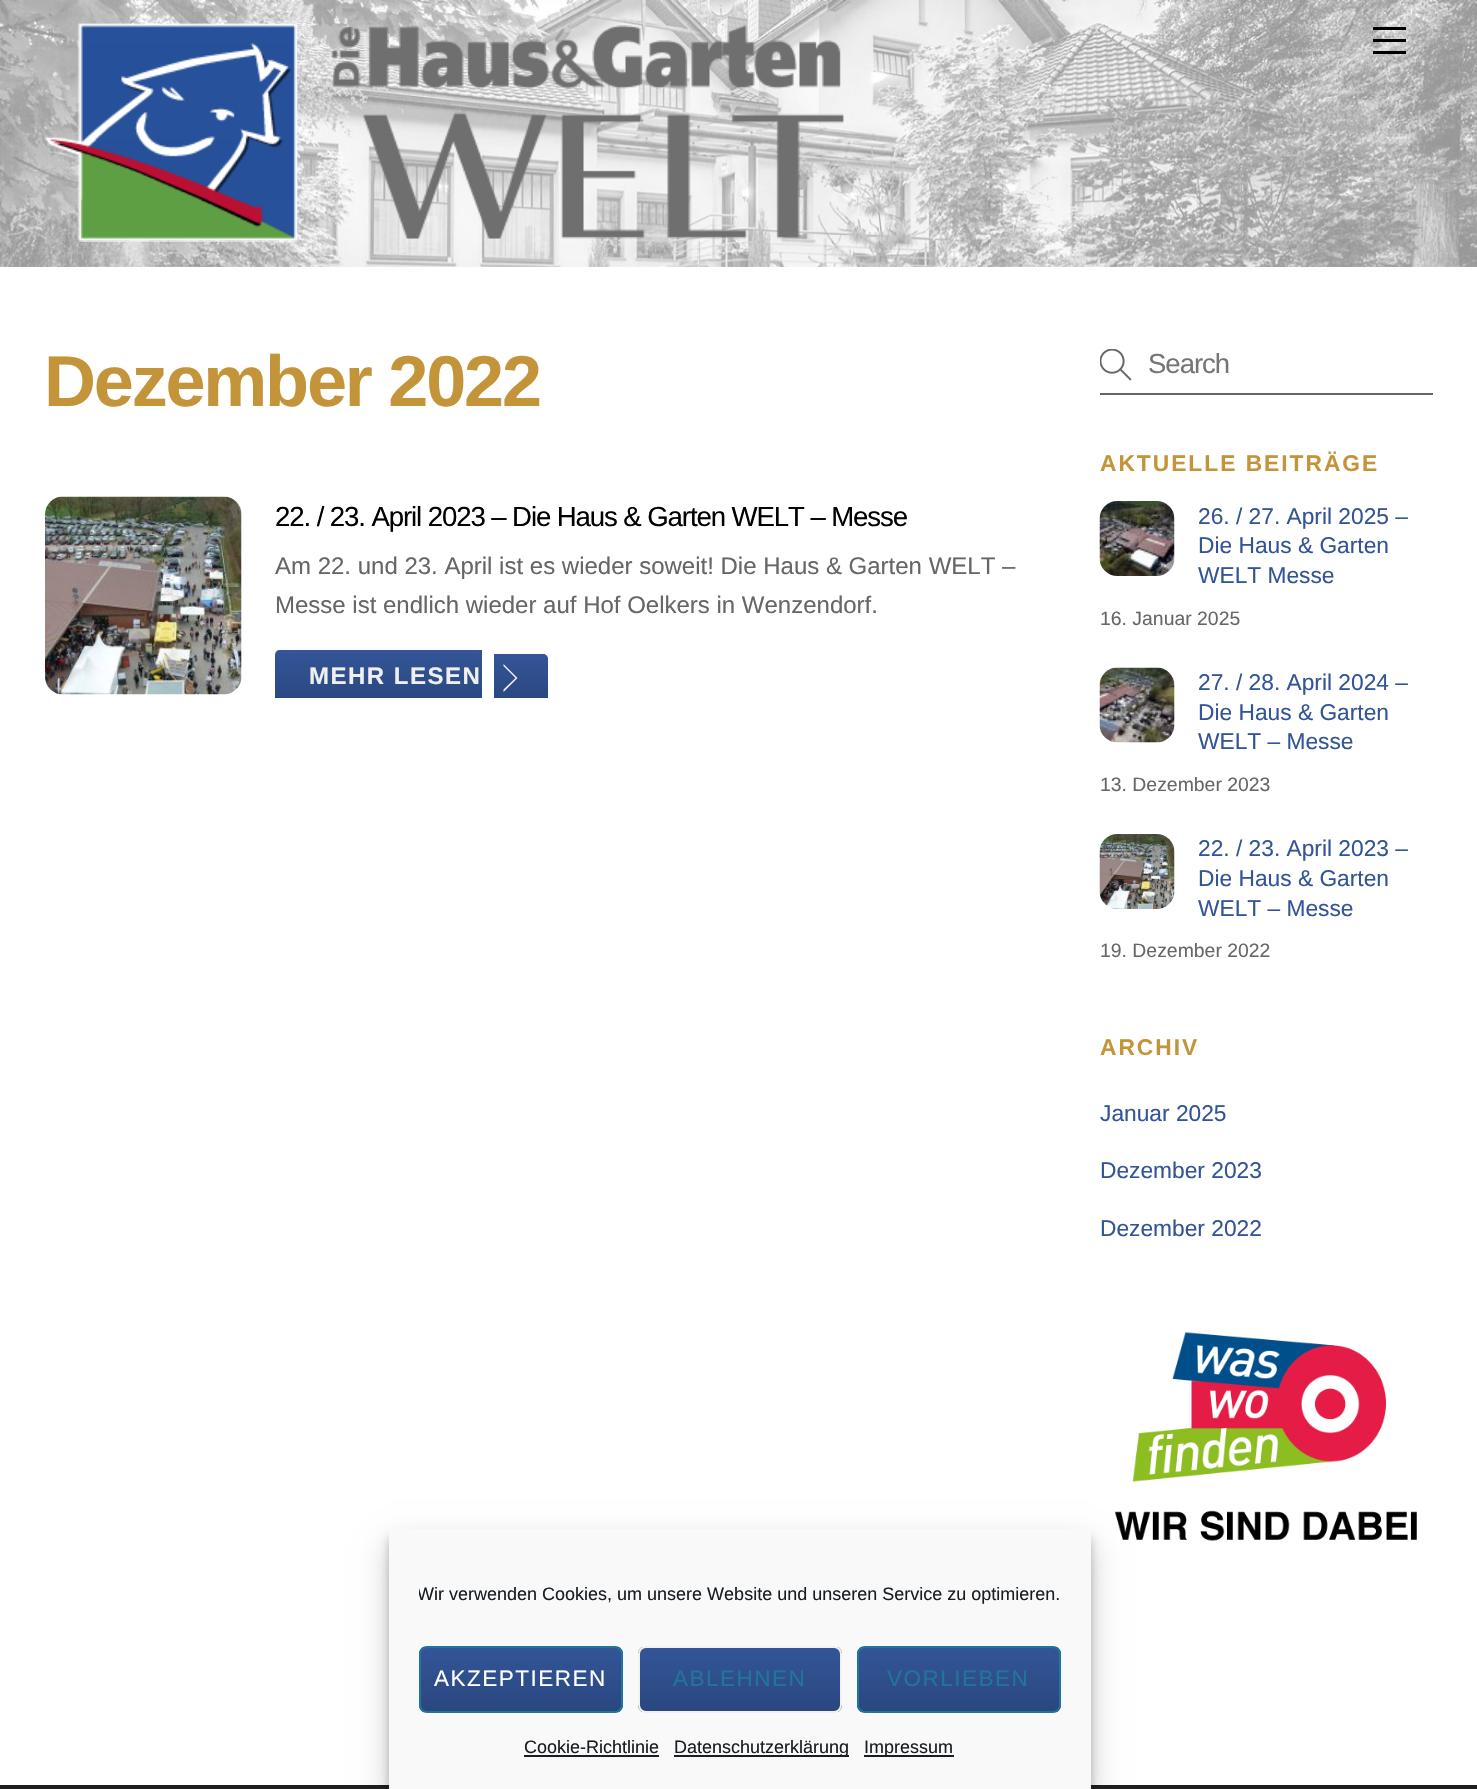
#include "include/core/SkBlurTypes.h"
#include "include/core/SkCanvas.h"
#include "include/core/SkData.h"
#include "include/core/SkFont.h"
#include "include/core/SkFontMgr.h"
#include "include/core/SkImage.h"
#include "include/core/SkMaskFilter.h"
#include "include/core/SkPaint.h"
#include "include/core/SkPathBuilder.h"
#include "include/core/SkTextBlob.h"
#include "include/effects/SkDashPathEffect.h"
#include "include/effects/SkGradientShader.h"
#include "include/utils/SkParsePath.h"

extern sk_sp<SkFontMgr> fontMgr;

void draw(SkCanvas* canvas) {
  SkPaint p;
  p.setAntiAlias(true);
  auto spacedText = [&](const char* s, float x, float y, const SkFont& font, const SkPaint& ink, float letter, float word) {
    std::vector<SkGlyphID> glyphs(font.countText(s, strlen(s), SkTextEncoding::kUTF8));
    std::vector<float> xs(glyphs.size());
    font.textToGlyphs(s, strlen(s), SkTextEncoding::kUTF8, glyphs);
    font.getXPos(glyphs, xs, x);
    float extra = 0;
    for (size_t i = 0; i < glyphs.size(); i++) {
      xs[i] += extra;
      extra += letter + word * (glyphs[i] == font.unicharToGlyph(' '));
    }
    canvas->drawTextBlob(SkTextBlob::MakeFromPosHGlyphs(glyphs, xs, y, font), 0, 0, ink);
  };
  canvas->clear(SK_ColorWHITE);
  canvas->drawImageRect(SkImages::DeferredFromEncodedData(SkData::MakeFromFileName("images/1.png")), SkRect::MakeLTRB(0, 0, 1477, 267), SkSamplingOptions());
  canvas->drawImageRect(SkImages::DeferredFromEncodedData(SkData::MakeFromFileName("images/2.png")), SkRect::MakeLTRB(44, 23, 844, 242), SkSamplingOptions());
  p.setColor(SK_ColorBLACK);
  canvas->drawRect(SkRect::MakeLTRB(1373, 51, 1406, 54), p);
  canvas->drawRect(SkRect::MakeLTRB(1373, 27, 1406, 30), p);
  canvas->drawRect(SkRect::MakeLTRB(1373, 39, 1406, 42), p);
  canvas->drawImageRect(SkImages::DeferredFromEncodedData(SkData::MakeFromFileName("images/3.png")), SkRect::MakeLTRB(45, 496, 242, 695), SkSamplingOptions());
  {
    const SkColor colors[] = {SkColorSetRGB(51, 85, 152), SkColorSetRGB(42, 71, 127)};
    const float stops[] = {0, 1};
    const SkPoint ends[] = {{378, 650}, {378, 704}};
    p.setShader(SkGradientShader::MakeLinear(ends, colors, stops, 2, SkTileMode::kClamp));
    p.setAlpha(255);
  }
  canvas->drawPath(SkPathBuilder().moveTo(280, 650).lineTo(482, 650).lineTo(482, 698).lineTo(275, 698).lineTo(275, 655).cubicTo(275, 652, 277, 650, 280, 650).close().detach(), p);
  canvas->save();
  canvas->clipRect(SkRect::MakeLTRB(275, 497, 1031, 698));
  {
    const SkColor colors[] = {SkColorSetRGB(51, 85, 152), SkColorSetRGB(42, 71, 127)};
    const float stops[] = {0, 1};
    const SkPoint ends[] = {{521, 654}, {521, 702}};
    p.setShader(SkGradientShader::MakeLinear(ends, colors, stops, 2, SkTileMode::kClamp));
    p.setAlpha(255);
  }
  canvas->drawPath(SkPathBuilder().moveTo(494, 654).lineTo(543, 654).cubicTo(546, 654, 548, 656, 548, 659).lineTo(548, 697).cubicTo(548, 700, 546, 702, 543, 702).lineTo(494, 702).close().detach(), p);
  canvas->restore();
  p.setShader(nullptr);
  p.setColor(SkColorSetRGB(239, 239, 239));
  canvas->drawPath(SkPathBuilder().moveTo(503.5f, 664).lineTo(517.5f, 678).lineTo(515.5f, 678).lineTo(503.5f, 666).close().moveTo(517.5f, 678).lineTo(503.5f, 692).lineTo(503.5f, 689.5f).lineTo(515.5f, 678).close().detach(), p);
  p.setColor(SkColorSetRGB(102, 102, 102));
  canvas->drawRect(SkRect::MakeLTRB(1100, 393, 1433, 395), p);
  canvas->drawImageRect(SkImages::DeferredFromEncodedData(SkData::MakeFromFileName("images/4.png")), SkRect::MakeLTRB(1100, 349, 1132, 381), SkSamplingOptions());
  canvas->drawImageRect(SkImages::DeferredFromEncodedData(SkData::MakeFromFileName("images/5.png")), SkRect::MakeLTRB(1099, 501, 1175, 576), SkSamplingOptions());
  canvas->drawImageRect(SkImages::DeferredFromEncodedData(SkData::MakeFromFileName("images/6.png")), SkRect::MakeLTRB(1099, 667, 1175, 743), SkSamplingOptions());
  canvas->drawImageRect(SkImages::DeferredFromEncodedData(SkData::MakeFromFileName("images/7.png")), SkRect::MakeLTRB(1099, 834, 1175, 909), SkSamplingOptions());
  canvas->drawImageRect(SkImages::DeferredFromEncodedData(SkData::MakeFromFileName("images/8.png")), SkRect::MakeLTRB(1114, 1332, 1417, 1541), SkSamplingOptions());
  p.setColor(SkColorSetRGB(32, 32, 32));
  canvas->drawRect(SkRect::MakeLTRB(0, 1787, 1477, 1789), p);
  p.setColor(SkColorSetRGB(30, 30, 30));
  canvas->drawRect(SkRect::MakeLTRB(0, 1785, 1477, 1787), p);
  p.setColor(SkColorSetARGB(59, 0, 0, 0));
  p.setMaskFilter(SkMaskFilter::MakeBlur(kNormal_SkBlurStyle, 4.5f));
  canvas->drawRect(SkRect::MakeLTRB(389, 1538, 1091, 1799), p);
  p.setMaskFilter(nullptr);
  p.setColor(SkColorSetARGB(48, 0, 0, 0));
  p.setMaskFilter(SkMaskFilter::MakeBlur(kNormal_SkBlurStyle, 15));
  canvas->drawRect(SkRect::MakeLTRB(389, 1544, 1091, 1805), p);
  p.setMaskFilter(nullptr);
  p.setColor(SkColorSetRGB(249, 249, 249));
  canvas->drawRect(SkRect::MakeLTRB(389, 1529, 1091, 1789), p);
  canvas->save();
  canvas->clipPath(SkPathBuilder().moveTo(427, 1646).lineTo(615, 1646).cubicTo(619.5f, 1646, 623, 1649.5f, 623, 1654).lineTo(623, 1705).cubicTo(623, 1709.5f, 619.5f, 1713, 615, 1713).lineTo(427, 1713).cubicTo(422.5f, 1713, 419, 1709.5f, 419, 1705).lineTo(419, 1654).cubicTo(419, 1649.5f, 422.5f, 1646, 427, 1646).close().detach(), true);
  {
    const SkColor colors[] = {SkColorSetRGB(51, 85, 152), SkColorSetRGB(42, 71, 127)};
    const float stops[] = {0, 1};
    const SkPoint ends[] = {{520, 1647}, {520, 1712}};
    p.setShader(SkGradientShader::MakeLinear(ends, colors, stops, 2, SkTileMode::kClamp));
    p.setAlpha(255);
  }
  canvas->drawRect(SkRect::MakeLTRB(419, 1647, 623, 1712), p);
  canvas->restore();
  p.setStyle(SkPaint::kStroke_Style);
  p.setStrokeWidth(2);
  p.setShader(nullptr);
  p.setColor(SkColorSetRGB(33, 117, 155));
  canvas->drawRoundRect(SkRect::MakeLTRB(420, 1647, 622, 1712), 7, 7, p);
  canvas->save();
  canvas->clipPath(SkPathBuilder().moveTo(646, 1646).lineTo(834, 1646).cubicTo(838.5f, 1646, 842, 1649.5f, 842, 1654).lineTo(842, 1705).cubicTo(842, 1709.5f, 838.5f, 1713, 834, 1713).lineTo(646, 1713).cubicTo(641.5f, 1713, 638, 1709.5f, 638, 1705).lineTo(638, 1654).cubicTo(638, 1649.5f, 641.5f, 1646, 646, 1646).close().detach(), true);
  p.setStyle(SkPaint::kFill_Style);
  {
    const SkColor colors[] = {SkColorSetRGB(51, 85, 152), SkColorSetRGB(42, 71, 127)};
    const float stops[] = {0, 1};
    const SkPoint ends[] = {{739, 1647}, {739, 1712}};
    p.setShader(SkGradientShader::MakeLinear(ends, colors, stops, 2, SkTileMode::kClamp));
    p.setAlpha(255);
  }
  canvas->drawRect(SkRect::MakeLTRB(638, 1647, 842, 1712), p);
  canvas->restore();
  p.setStyle(SkPaint::kStroke_Style);
  p.setShader(nullptr);
  p.setColor(SkColorSetRGB(241, 241, 241));
  canvas->drawRoundRect(SkRect::MakeLTRB(639, 1647, 841, 1712), 7, 7, p);
  canvas->save();
  canvas->clipPath(SkPathBuilder().moveTo(865, 1646).lineTo(1053, 1646).cubicTo(1057.5f, 1646, 1061, 1649.5f, 1061, 1654).lineTo(1061, 1705).cubicTo(1061, 1709.5f, 1057.5f, 1713, 1053, 1713).lineTo(865, 1713).cubicTo(860.5f, 1713, 857, 1709.5f, 857, 1705).lineTo(857, 1654).cubicTo(857, 1649.5f, 860.5f, 1646, 865, 1646).close().detach(), true);
  p.setStyle(SkPaint::kFill_Style);
  {
    const SkColor colors[] = {SkColorSetRGB(51, 85, 152), SkColorSetRGB(42, 71, 127)};
    const float stops[] = {0, 1};
    const SkPoint ends[] = {{958, 1647}, {958, 1712}};
    p.setShader(SkGradientShader::MakeLinear(ends, colors, stops, 2, SkTileMode::kClamp));
    p.setAlpha(255);
  }
  canvas->drawRect(SkRect::MakeLTRB(857, 1647, 1061, 1712), p);
  canvas->restore();
  p.setStyle(SkPaint::kStroke_Style);
  p.setShader(nullptr);
  p.setColor(SkColorSetRGB(33, 117, 155));
  canvas->drawRoundRect(SkRect::MakeLTRB(858, 1647, 1060, 1712), 7, 7, p);
  p.setStyle(SkPaint::kFill_Style);
  p.setColor(SkColorSetRGB(25, 30, 35));
  canvas->drawRect(SkRect::MakeLTRB(524, 1755, 659, 1757), p);
  canvas->drawRect(SkRect::MakeLTRB(674, 1755, 849, 1757), p);
  canvas->drawRect(SkRect::MakeLTRB(864, 1755, 954, 1757), p);
  SkFont font1(fontMgr->matchFamilyStyle("Liberation Sans", SkFontStyle::Bold()), 72);
  font1.setSubpixel(true);
  p.setColor(SkColorSetRGB(196, 148, 58));
  spacedText("Dezember 2022", 44, 406, font1, p, -2.2f, 0);
  SkFont font2(fontMgr->matchFamilyStyle("Liberation Sans", SkFontStyle::Normal()), 27.6f);
  font2.setSubpixel(true);
  p.setColor(SK_ColorBLACK);
  spacedText("22. / 23. April 2023 – Die Haus & Garten WELT – Messe", 275, 526, font2, p, -1.1f, 0);
  SkFont font3(fontMgr->matchFamilyStyle("Liberation Sans", SkFontStyle::Normal()), 24);
  font3.setSubpixel(true);
  p.setColor(SkColorSetRGB(102, 102, 102));
  canvas->drawString("Am 22. und 23. April ist es wieder soweit! Die Haus & Garten WELT –", 275, 574, font3, p);
  canvas->drawString("Messe ist endlich wieder auf Hof Oelkers in Wenzendorf.", 275, 613, font3, p);
  SkFont font4(fontMgr->matchFamilyStyle("Liberation Sans", SkFontStyle::Bold()), 24);
  font4.setSubpixel(true);
  p.setColor(SkColorSetRGB(239, 239, 239));
  spacedText("MEHR LESEN", 309, 684, font4, p, 1.5f, 0);
  SkFont font5(fontMgr->matchFamilyStyle("Liberation Sans", SkFontStyle::Normal()), 27.5f);
  font5.setSubpixel(true);
  p.setColor(SkColorSetRGB(117, 117, 117));
  spacedText("Search", 1148, 373, font5, p, -1, 0);
  SkFont font6(fontMgr->matchFamilyStyle("Liberation Sans", SkFontStyle::Bold()), 22.75f);
  font6.setSubpixel(true);
  p.setColor(SkColorSetRGB(196, 148, 58));
  spacedText("AKTUELLE BEITRÄGE", 1100, 471, font6, p, 2, 0);
  SkFont font7(fontMgr->matchFamilyStyle("Liberation Sans", SkFontStyle::Normal()), 22.75f);
  font7.setSubpixel(true);
  p.setColor(SkColorSetRGB(51, 85, 152));
  canvas->drawString("26. / 27. April 2025 –", 1198, 524, font7, p);
  canvas->drawString("Die Haus & Garten", 1198, 553, font7, p);
  canvas->drawString("WELT Messe", 1198, 583, font7, p);
  SkFont font8(fontMgr->matchFamilyStyle("Liberation Sans", SkFontStyle::Normal()), 19.4f);
  font8.setSubpixel(true);
  p.setColor(SkColorSetRGB(102, 102, 102));
  canvas->drawString("16. Januar 2025", 1100, 625, font8, p);
  p.setColor(SkColorSetRGB(51, 85, 152));
  canvas->drawString("27. / 28. April 2024 –", 1198, 690, font7, p);
  canvas->drawString("Die Haus & Garten", 1198, 720, font7, p);
  canvas->drawString("WELT – Messe", 1198, 749, font7, p);
  p.setColor(SkColorSetRGB(102, 102, 102));
  canvas->drawString("13. Dezember 2023", 1100, 791, font8, p);
  p.setColor(SkColorSetRGB(51, 85, 152));
  canvas->drawString("22. / 23. April 2023 –", 1198, 856, font7, p);
  canvas->drawString("Die Haus & Garten", 1198, 886, font7, p);
  canvas->drawString("WELT – Messe", 1198, 916, font7, p);
  p.setColor(SkColorSetRGB(102, 102, 102));
  canvas->drawString("19. Dezember 2022", 1100, 957, font8, p);
  p.setColor(SkColorSetRGB(196, 148, 58));
  spacedText("ARCHIV", 1100, 1055, font6, p, 2, 0);
  p.setColor(SkColorSetRGB(51, 85, 152));
  canvas->drawString("Januar 2025", 1100, 1121, font7, p);
  canvas->drawString("Dezember 2023", 1100, 1178, font7, p);
  canvas->drawString("Dezember 2022", 1100, 1236, font7, p);
  canvas->save();
  canvas->clipRect(SkRect::MakeLTRB(419, 1581, 1061, 1616));
  SkFont font9(fontMgr->matchFamilyStyle("Liberation Sans", SkFontStyle::Normal()), 18);
  font9.setSubpixel(true);
  p.setColor(SkColorSetRGB(25, 30, 35));
  canvas->drawString("Wir verwenden Cookies, um unsere Website und unseren Service zu optimieren.", 417, 1600, font9, p);
  canvas->restore();
  SkFont font10(fontMgr->matchFamilyStyle("Liberation Sans", SkFontStyle::Normal()), 22.5f);
  font10.setSubpixel(true);
  p.setColor(SK_ColorWHITE);
  spacedText("AKZEPTIEREN", 434, 1686, font10, p, 1.5f, 0);
  p.setColor(SkColorSetRGB(33, 117, 155));
  spacedText("ABLEHNEN", 673, 1686, font10, p, 1.5f, 0);
  spacedText("VORLIEBEN", 887, 1686, font10, p, 1.5f, 0);
  p.setColor(SkColorSetRGB(25, 30, 35));
  canvas->drawString("Cookie-Richtlinie", 524, 1753, font9, p);
  canvas->drawString("Datenschutzerklärung", 674, 1753, font9, p);
  canvas->drawString("Impressum", 864, 1753, font9, p);
}
